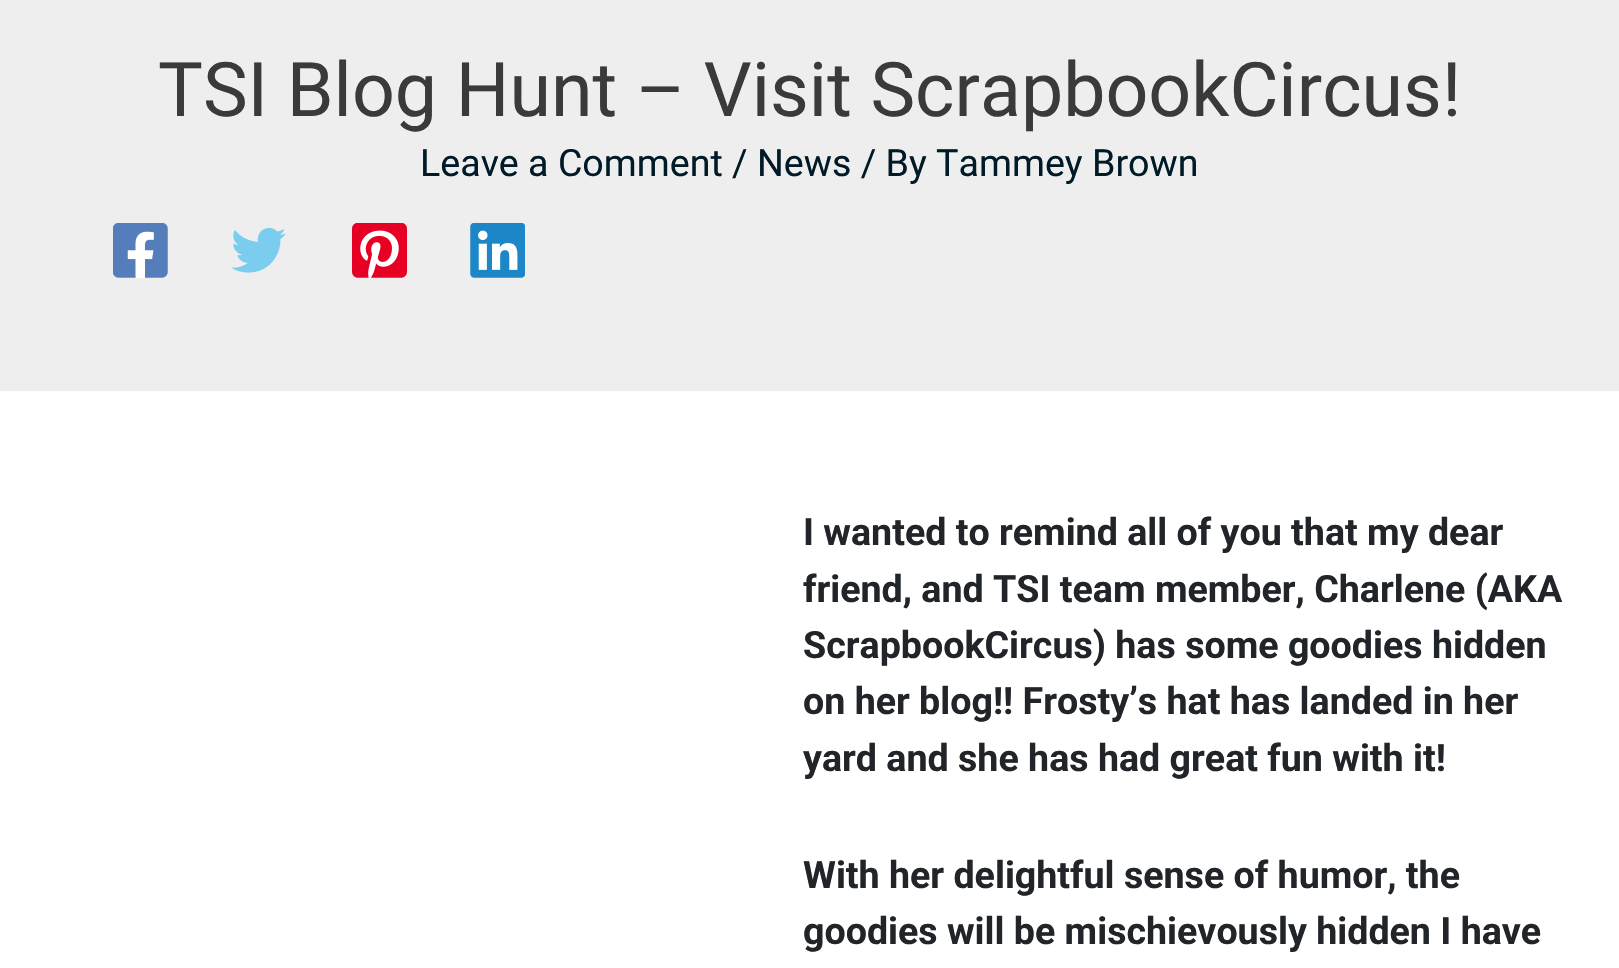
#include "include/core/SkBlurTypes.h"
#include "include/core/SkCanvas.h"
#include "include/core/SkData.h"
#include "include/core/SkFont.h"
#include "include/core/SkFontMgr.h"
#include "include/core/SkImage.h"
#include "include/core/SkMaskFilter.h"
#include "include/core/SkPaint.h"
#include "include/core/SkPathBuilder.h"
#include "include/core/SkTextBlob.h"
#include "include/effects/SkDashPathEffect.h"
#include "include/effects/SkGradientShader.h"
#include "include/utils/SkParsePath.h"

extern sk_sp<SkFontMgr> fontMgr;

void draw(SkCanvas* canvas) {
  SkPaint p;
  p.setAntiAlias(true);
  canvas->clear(SK_ColorWHITE);
  p.setColor(SkColorSetRGB(238, 238, 238));
  canvas->drawRect(SkRect::MakeLTRB(0, 0, 1619, 391), p);
  canvas->drawImageRect(SkImages::DeferredFromEncodedData(SkData::MakeFromFileName("images/1.png")), SkRect::MakeLTRB(113, 223, 168, 278), SkSamplingOptions());
  canvas->drawImageRect(SkImages::DeferredFromEncodedData(SkData::MakeFromFileName("images/2.png")), SkRect::MakeLTRB(231, 227, 286, 273), SkSamplingOptions());
  canvas->drawImageRect(SkImages::DeferredFromEncodedData(SkData::MakeFromFileName("images/3.png")), SkRect::MakeLTRB(352, 223, 407, 278), SkSamplingOptions());
  canvas->drawImageRect(SkImages::DeferredFromEncodedData(SkData::MakeFromFileName("images/4.png")), SkRect::MakeLTRB(470, 223, 525, 278), SkSamplingOptions());
  SkFont font1(fontMgr->matchFamilyStyle("Roboto", SkFontStyle::Normal()), 75.25f);
  font1.setSubpixel(true);
  p.setColor(SkColorSetRGB(58, 58, 58));
  canvas->drawString("TSI Blog Hunt – Visit ScrapbookCircus!", 158, 116, font1, p);
  SkFont font2(fontMgr->matchFamilyStyle("Roboto", SkFontStyle::Normal()), 37.6f);
  font2.setSubpixel(true);
  p.setColor(SkColorSetRGB(1, 26, 39));
  canvas->drawString("Leave a Comment / News / By Tammey Brown", 420, 176, font2, p);
  SkFont font3(fontMgr->matchFamilyStyle("Roboto", SkFontStyle::Bold()), 37.6f);
  font3.setSubpixel(true);
  p.setColor(SkColorSetRGB(33, 37, 41));
  canvas->drawString("I wanted to remind all of you that my dear", 803, 545, font3, p);
  canvas->drawString("friend, and TSI team member, Charlene (AKA", 803, 602, font3, p);
  canvas->drawString("ScrapbookCircus) has some goodies hidden", 803, 658, font3, p);
  canvas->drawString("on her blog!! Frosty’s hat has landed in her", 803, 714, font3, p);
  canvas->drawString("yard and she has had great fun with it!", 803, 771, font3, p);
  canvas->drawString("With her delightful sense of humor, the", 803, 888, font3, p);
  canvas->drawString("goodies will be mischievously hidden I have", 803, 944, font3, p);
}
